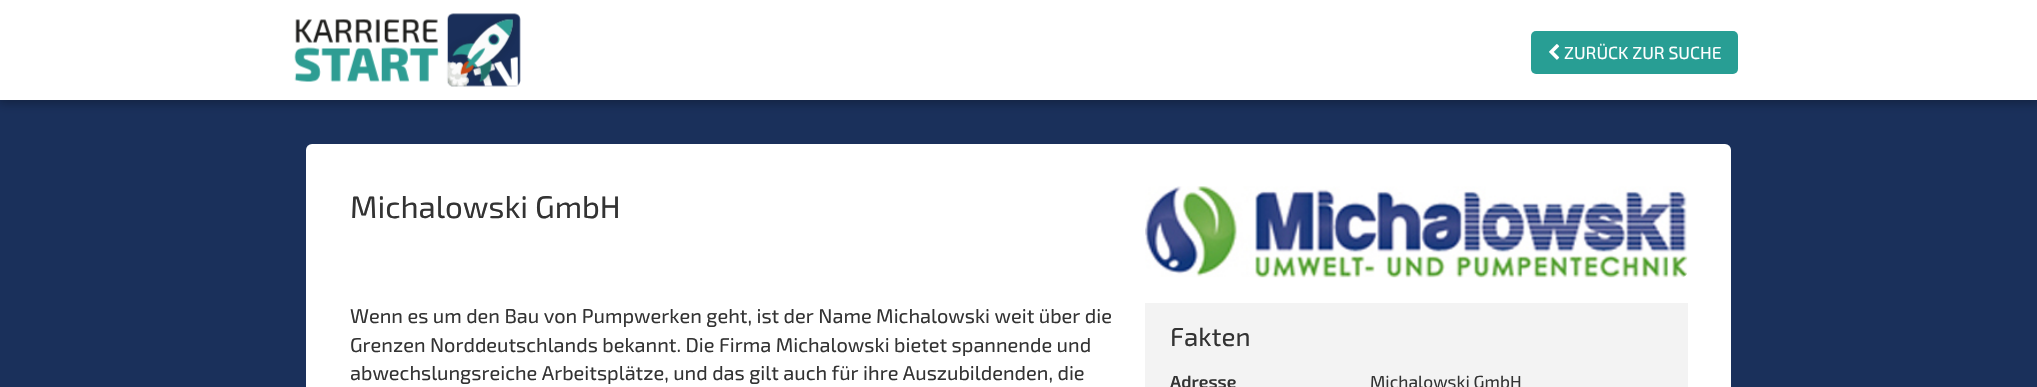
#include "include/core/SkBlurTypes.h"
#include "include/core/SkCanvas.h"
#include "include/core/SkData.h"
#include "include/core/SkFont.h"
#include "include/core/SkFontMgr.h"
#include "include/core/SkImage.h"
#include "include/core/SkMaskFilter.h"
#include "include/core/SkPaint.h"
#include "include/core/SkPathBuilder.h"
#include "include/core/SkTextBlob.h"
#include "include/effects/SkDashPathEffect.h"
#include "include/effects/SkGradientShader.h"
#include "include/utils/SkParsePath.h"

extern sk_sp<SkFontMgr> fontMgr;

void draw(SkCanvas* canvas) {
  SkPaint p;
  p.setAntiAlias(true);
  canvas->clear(SkColorSetRGB(26, 48, 91));
  p.setColor(SkColorSetARGB(77, 0, 0, 0));
  p.setMaskFilter(SkMaskFilter::MakeBlur(kNormal_SkBlurStyle, 5));
  canvas->drawRect(SkRect::MakeLTRB(-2, -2, 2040, 103), p);
  p.setMaskFilter(nullptr);
  p.setColor(SK_ColorWHITE);
  canvas->drawRect(SkRect::MakeLTRB(0, 0, 2037, 100), p);
  canvas->drawImageRect(SkImages::DeferredFromEncodedData(SkData::MakeFromFileName("images/1.png")), SkRect::MakeLTRB(294, 13, 521, 87), SkSamplingOptions());
  p.setColor(SkColorSetRGB(40, 158, 148));
  canvas->drawRoundRect(SkRect::MakeLTRB(1531, 31, 1738, 74), 5, 5, p);
  canvas->drawImageRect(SkImages::DeferredFromEncodedData(SkData::MakeFromFileName("images/2.png")), SkRect::MakeLTRB(1549, 44, 1560, 60), SkSamplingOptions());
  p.setColor(SK_ColorWHITE);
  canvas->drawRoundRect(SkRect::MakeLTRB(306, 144, 1731, 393), 6, 6, p);
  canvas->drawImageRect(SkImages::DeferredFromEncodedData(SkData::MakeFromFileName("images/3.png")), SkRect::MakeLTRB(1145, 186, 1688, 278), SkSamplingOptions());
  p.setColor(SkColorSetRGB(243, 243, 243));
  canvas->drawRect(SkRect::MakeLTRB(1145, 303, 1688, 387), p);
  SkFont font1(fontMgr->matchFamilyStyle("Exo 2", SkFontStyle::Normal()), 17.5f);
  font1.setSubpixel(true);
  p.setColor(SK_ColorWHITE);
  canvas->drawString("ZURÜCK ZUR SUCHE", 1564, 59, font1, p);
  SkFont font2(fontMgr->matchFamilyStyle("Exo 2", SkFontStyle::Normal()), 31.25f);
  font2.setSubpixel(true);
  p.setColor(SkColorSetRGB(51, 51, 51));
  canvas->drawString("Michalowski GmbH", 350, 218, font2, p);
  SkFont font3(fontMgr->matchFamilyStyle("Exo 2", SkFontStyle::Normal()), 20);
  font3.setSubpixel(true);
  canvas->drawString("Wenn es um den Bau von Pumpwerken geht, ist der Name Michalowski weit über die", 350, 323, font3, p);
  canvas->drawString("Grenzen Norddeutschlands bekannt. Die Firma Michalowski bietet spannende und", 350, 352, font3, p);
  canvas->drawString("abwechslungsreiche Arbeitsplätze, und das gilt auch für ihre Auszubildenden, die", 350, 380, font3, p);
  SkFont font4(fontMgr->matchFamilyStyle("Exo 2", SkFontStyle::Normal()), 26);
  font4.setSubpixel(true);
  canvas->drawString("Fakten", 1170, 346, font4, p);
  SkFont font5(fontMgr->matchFamilyStyle("Exo 2", SkFontStyle(600, SkFontStyle::kNormal_Width, SkFontStyle::kUpright_Slant)), 17.5f);
  font5.setSubpixel(true);
  canvas->drawString("Adresse", 1170, 388, font5, p);
  canvas->drawString("Michalowski GmbH", 1370, 388, font1, p);
}
